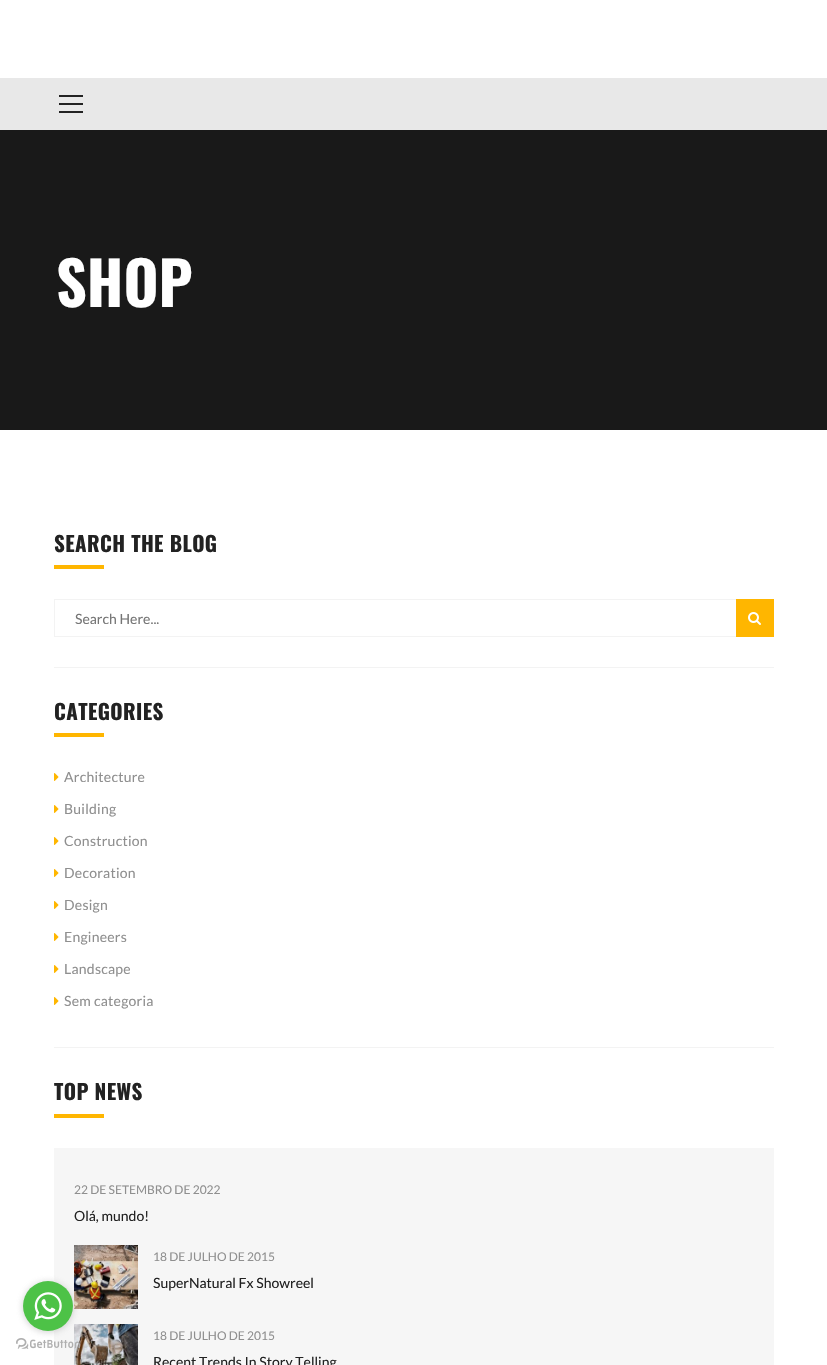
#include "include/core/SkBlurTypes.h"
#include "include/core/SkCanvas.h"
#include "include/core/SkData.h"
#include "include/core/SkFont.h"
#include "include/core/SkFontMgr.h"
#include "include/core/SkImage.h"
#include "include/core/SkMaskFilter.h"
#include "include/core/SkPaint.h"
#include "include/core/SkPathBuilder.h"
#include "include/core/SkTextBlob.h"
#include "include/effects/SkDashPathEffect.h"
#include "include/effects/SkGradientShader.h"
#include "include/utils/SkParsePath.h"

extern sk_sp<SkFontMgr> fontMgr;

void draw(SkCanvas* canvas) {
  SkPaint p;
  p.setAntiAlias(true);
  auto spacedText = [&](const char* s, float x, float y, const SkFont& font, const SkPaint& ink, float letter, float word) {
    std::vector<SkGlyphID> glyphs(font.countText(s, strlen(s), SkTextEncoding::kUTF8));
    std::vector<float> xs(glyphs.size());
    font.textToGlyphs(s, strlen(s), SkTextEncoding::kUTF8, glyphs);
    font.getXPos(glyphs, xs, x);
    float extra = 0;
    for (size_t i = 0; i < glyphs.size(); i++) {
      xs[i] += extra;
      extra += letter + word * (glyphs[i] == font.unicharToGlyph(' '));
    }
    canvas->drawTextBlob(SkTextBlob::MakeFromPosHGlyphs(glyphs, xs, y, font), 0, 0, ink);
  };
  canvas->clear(SK_ColorWHITE);
  p.setColor(SkColorSetRGB(246, 246, 246));
  canvas->drawRect(SkRect::MakeLTRB(54, 1148, 774, 1365), p);
  canvas->drawImageRect(SkImages::DeferredFromEncodedData(SkData::MakeFromFileName("images/6.png")), SkRect::MakeLTRB(74, 1324, 138, 1365), SkSamplingOptions());
  canvas->drawImageRect(SkImages::DeferredFromEncodedData(SkData::MakeFromFileName("images/2.png")), SkRect::MakeLTRB(16, 1338, 80, 1349), SkSamplingOptions());
  canvas->drawImageRect(SkImages::DeferredFromEncodedData(SkData::MakeFromFileName("images/5.png")), SkRect::MakeLTRB(74, 1245, 138, 1309), SkSamplingOptions());
  p.setColor(SkColorSetARGB(102, 136, 136, 136));
  p.setMaskFilter(SkMaskFilter::MakeBlur(kNormal_SkBlurStyle, 3.5f));
  canvas->drawRoundRect(SkRect::MakeLTRB(23, 1282, 73, 1332), 25, 25, p);
  p.setMaskFilter(nullptr);
  p.setColor(SkColorSetRGB(77, 194, 71));
  canvas->drawCircle(48, 1306, 25, p);
  canvas->drawImageRect(SkImages::DeferredFromEncodedData(SkData::MakeFromFileName("images/1.png")), SkRect::MakeLTRB(34, 1292, 62, 1320), SkSamplingOptions());
  p.setColor(SkColorSetRGB(232, 232, 232));
  canvas->drawRect(SkRect::MakeLTRB(0, 78, 827, 130), p);
  p.setColor(SkColorSetRGB(34, 34, 34));
  canvas->drawRect(SkRect::MakeLTRB(59, 95, 83, 97), p);
  canvas->drawRect(SkRect::MakeLTRB(59, 103, 83, 105), p);
  canvas->drawRect(SkRect::MakeLTRB(59, 111, 83, 113), p);
  p.setColor(SkColorSetRGB(25, 25, 25));
  canvas->drawRect(SkRect::MakeLTRB(0, 130, 827, 430), p);
  p.setColor(SkColorSetRGB(243, 243, 243));
  canvas->drawRect(SkRect::MakeLTRB(54, 667, 774, 668), p);
  p.setColor(SkColorSetRGB(255, 182, 0));
  canvas->drawRect(SkRect::MakeLTRB(54, 565, 104, 569), p);
  p.setStyle(SkPaint::kStroke_Style);
  p.setStrokeWidth(1);
  p.setColor(SkColorSetRGB(243, 243, 243));
  canvas->drawRect(SkRect::MakeLTRB(54.5f, 599.5f, 773.5f, 636.5f), p);
  p.setStyle(SkPaint::kFill_Style);
  p.setColor(SkColorSetRGB(255, 182, 0));
  canvas->drawRect(SkRect::MakeLTRB(736, 599, 774, 637), p);
  canvas->drawImageRect(SkImages::DeferredFromEncodedData(SkData::MakeFromFileName("images/3.png")), SkRect::MakeLTRB(748, 612, 761, 625), SkSamplingOptions());
  p.setColor(SkColorSetRGB(243, 243, 243));
  canvas->drawRect(SkRect::MakeLTRB(54, 1047, 774, 1048), p);
  p.setColor(SkColorSetRGB(255, 182, 0));
  canvas->drawRect(SkRect::MakeLTRB(54, 733, 104, 737), p);
  canvas->drawImageRect(SkImages::DeferredFromEncodedData(SkData::MakeFromFileName("images/4.png")), SkRect::MakeLTRB(54, 773, 59, 781), SkSamplingOptions());
  canvas->drawImageRect(SkImages::DeferredFromEncodedData(SkData::MakeFromFileName("images/4.png")), SkRect::MakeLTRB(54, 805, 59, 813), SkSamplingOptions());
  canvas->drawImageRect(SkImages::DeferredFromEncodedData(SkData::MakeFromFileName("images/4.png")), SkRect::MakeLTRB(54, 837, 59, 845), SkSamplingOptions());
  canvas->drawImageRect(SkImages::DeferredFromEncodedData(SkData::MakeFromFileName("images/4.png")), SkRect::MakeLTRB(54, 869, 59, 877), SkSamplingOptions());
  canvas->drawImageRect(SkImages::DeferredFromEncodedData(SkData::MakeFromFileName("images/4.png")), SkRect::MakeLTRB(54, 901, 59, 909), SkSamplingOptions());
  canvas->drawImageRect(SkImages::DeferredFromEncodedData(SkData::MakeFromFileName("images/4.png")), SkRect::MakeLTRB(54, 933, 59, 941), SkSamplingOptions());
  canvas->drawImageRect(SkImages::DeferredFromEncodedData(SkData::MakeFromFileName("images/4.png")), SkRect::MakeLTRB(54, 965, 59, 973), SkSamplingOptions());
  canvas->drawImageRect(SkImages::DeferredFromEncodedData(SkData::MakeFromFileName("images/4.png")), SkRect::MakeLTRB(54, 997, 59, 1005), SkSamplingOptions());
  canvas->drawRect(SkRect::MakeLTRB(54, 1114, 104, 1118), p);
  SkFont font1(fontMgr->matchFamilyStyle("Oswald", SkFontStyle::Bold()), 60);
  font1.setSubpixel(true);
  p.setColor(SK_ColorWHITE);
  canvas->drawString("SHOP", 56, 307, font1, p);
  SkFont font2(fontMgr->matchFamilyStyle("Oswald", SkFontStyle::Bold()), 21);
  font2.setSubpixel(true);
  p.setColor(SkColorSetRGB(34, 34, 34));
  spacedText("SEARCH THE BLOG", 54, 552, font2, p, 0.4f, 0);
  SkFont font3(fontMgr->matchFamilyStyle("Lato", SkFontStyle::Normal()), 14);
  font3.setSubpixel(true);
  p.setColor(SkColorSetRGB(117, 117, 117));
  canvas->drawString("Search Here...", 75, 624, font3, p);
  p.setColor(SkColorSetRGB(34, 34, 34));
  spacedText("CATEGORIES", 54, 720, font2, p, 0.4f, 0);
  p.setColor(SkColorSetRGB(143, 143, 143));
  spacedText("Architecture", 64, 782, font3, p, 0.25f, 0);
  spacedText("Building", 64, 814, font3, p, 0.25f, 0);
  spacedText("Construction", 64, 846, font3, p, 0.25f, 0);
  spacedText("Decoration", 64, 878, font3, p, 0.25f, 0);
  spacedText("Design", 64, 910, font3, p, 0.25f, 0);
  spacedText("Engineers", 64, 942, font3, p, 0.25f, 0);
  spacedText("Landscape", 64, 974, font3, p, 0.25f, 0);
  spacedText("Sem categoria", 64, 1006, font3, p, 0.25f, 0);
  p.setColor(SkColorSetRGB(34, 34, 34));
  spacedText("TOP NEWS", 54, 1100, font2, p, 0.4f, 0);
  SkFont font4(fontMgr->matchFamilyStyle("Lato", SkFontStyle::Normal()), 12);
  font4.setSubpixel(true);
  p.setColor(SkColorSetRGB(143, 143, 143));
  canvas->drawString("22 DE SETEMBRO DE 2022", 74, 1194, font4, p);
  p.setColor(SkColorSetRGB(34, 34, 34));
  canvas->drawString("Olá, mundo!", 74, 1221, font3, p);
  p.setColor(SkColorSetRGB(143, 143, 143));
  canvas->drawString("18 DE JULHO DE 2015", 153, 1261, font4, p);
  p.setColor(SkColorSetRGB(34, 34, 34));
  canvas->drawString("SuperNatural Fx Showreel", 153, 1288, font3, p);
  p.setColor(SkColorSetRGB(143, 143, 143));
  canvas->drawString("18 DE JULHO DE 2015", 153, 1340, font4, p);
  p.setColor(SkColorSetRGB(34, 34, 34));
  canvas->drawString("Recent Trends In Story Telling", 153, 1367, font3, p);
}
